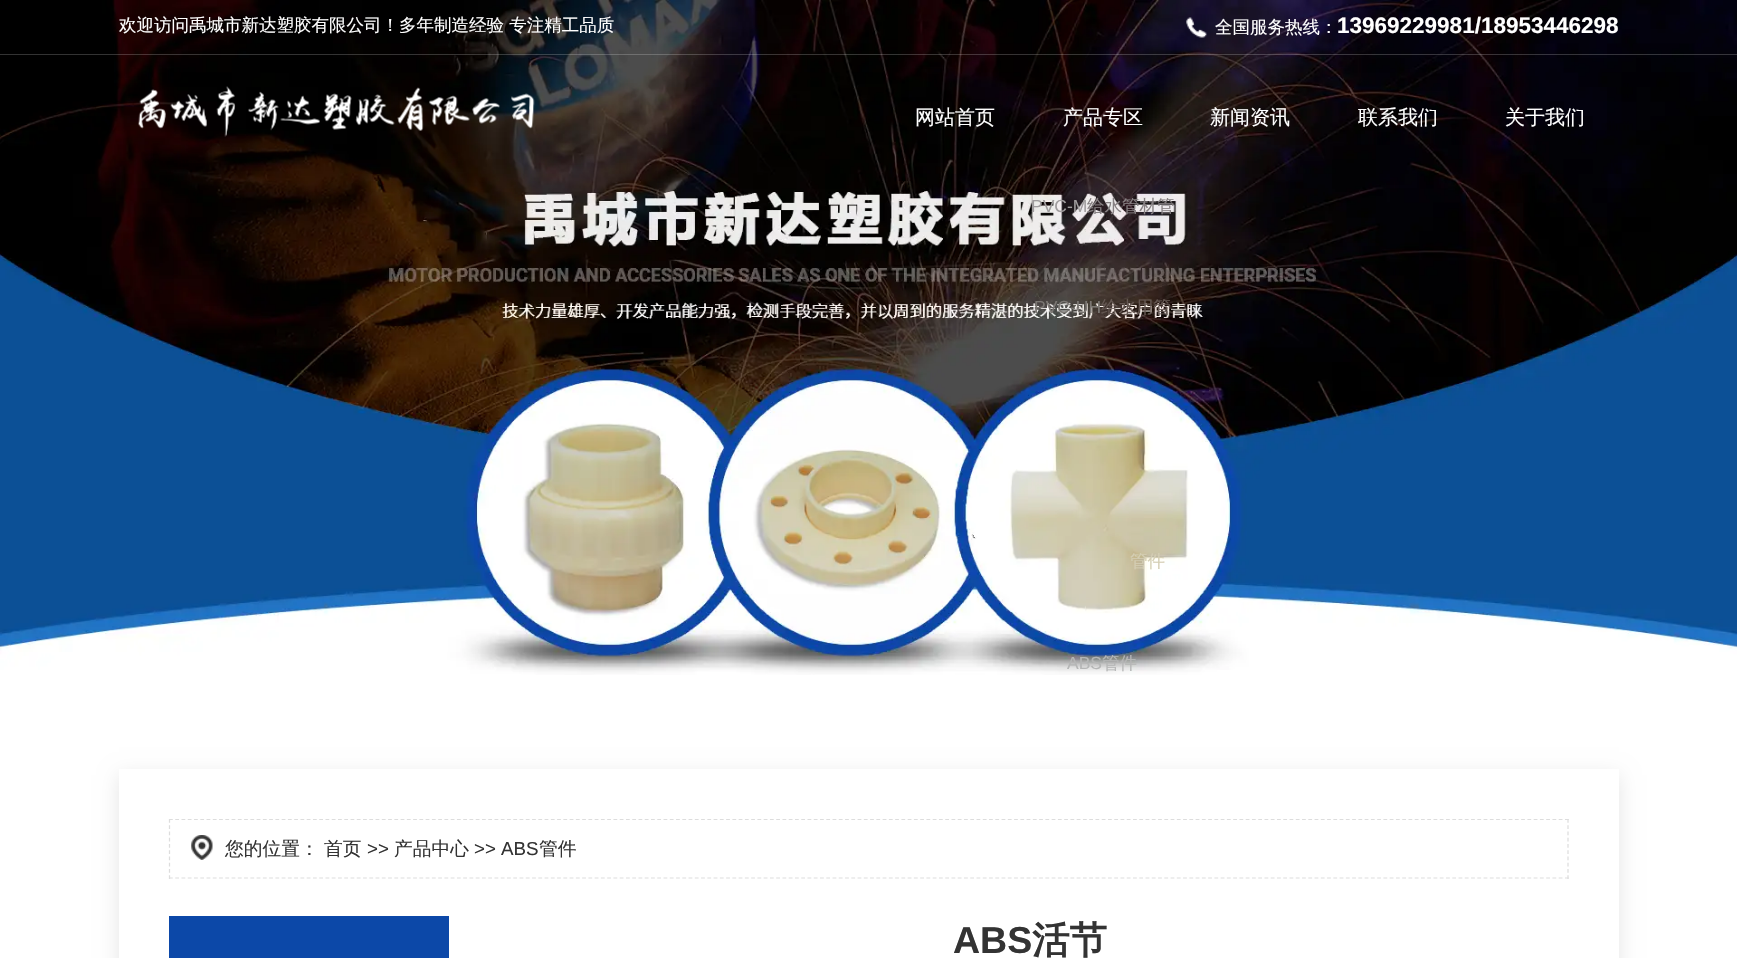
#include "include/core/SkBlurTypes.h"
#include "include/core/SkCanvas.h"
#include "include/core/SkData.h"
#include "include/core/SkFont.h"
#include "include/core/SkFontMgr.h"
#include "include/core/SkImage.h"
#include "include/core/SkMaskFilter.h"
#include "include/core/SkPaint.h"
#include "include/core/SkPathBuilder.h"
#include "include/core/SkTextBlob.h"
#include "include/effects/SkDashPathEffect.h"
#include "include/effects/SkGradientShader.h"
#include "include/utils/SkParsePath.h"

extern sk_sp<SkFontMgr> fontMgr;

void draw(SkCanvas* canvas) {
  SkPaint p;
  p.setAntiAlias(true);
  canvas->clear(SK_ColorWHITE);
  canvas->drawImageRect(SkImages::DeferredFromEncodedData(SkData::MakeFromFileName("images/1.png")), SkRect::MakeLTRB(0, 0, 1737, 675), SkSamplingOptions());
  p.setColor(SkColorSetARGB(51, 255, 255, 255));
  canvas->drawRect(SkRect::MakeLTRB(0, 54, 1737, 55), p);
  canvas->drawImageRect(SkImages::DeferredFromEncodedData(SkData::MakeFromFileName("images/2.png")), SkRect::MakeLTRB(1186, 17, 1207, 38), SkSamplingOptions());
  canvas->drawImageRect(SkImages::DeferredFromEncodedData(SkData::MakeFromFileName("images/3.png")), SkRect::MakeLTRB(138, 86, 535, 137), SkSamplingOptions());
  canvas->save();
  canvas->clipPath(SkPathBuilder(SkPathFillType::kEvenOdd).moveTo(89, 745).lineTo(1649, 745).lineTo(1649, 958).lineTo(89, 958).close().moveTo(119, 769).lineTo(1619, 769).lineTo(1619, 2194).lineTo(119, 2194).close().detach(), true);
  p.setColor(SkColorSetARGB(26, 0, 0, 0));
  p.setMaskFilter(SkMaskFilter::MakeBlur(kNormal_SkBlurStyle, 9.5f));
  canvas->drawRect(SkRect::MakeLTRB(119, 775, 1619, 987), p);
  p.setMaskFilter(nullptr);
  canvas->restore();
  p.setStyle(SkPaint::kStroke_Style);
  p.setStrokeWidth(1.2f);
  p.setColor(SkColorSetRGB(221, 221, 221));
  p.setPathEffect(SkDashPathEffect::Make({{3.75f, 2.51f}}, 0));
  canvas->drawPath(SkPathBuilder().moveTo(169, 819.5f).lineTo(1569, 819.5f).detach(), p);
  p.setPathEffect(nullptr);
  p.setPathEffect(SkDashPathEffect::Make({{3.75f, 2.5f}}, 0));
  canvas->drawPath(SkPathBuilder().moveTo(1568, 819).lineTo(1568, 879).detach(), p);
  p.setPathEffect(nullptr);
  p.setPathEffect(SkDashPathEffect::Make({{3.75f, 2.51f}}, 0));
  canvas->drawPath(SkPathBuilder().moveTo(169, 878).lineTo(1569, 878).detach(), p);
  p.setPathEffect(nullptr);
  p.setPathEffect(SkDashPathEffect::Make({{3.75f, 2.5f}}, 0));
  canvas->drawPath(SkPathBuilder().moveTo(169.5f, 819).lineTo(169.5f, 879).detach(), p);
  p.setPathEffect(nullptr);
  canvas->drawImageRect(SkImages::DeferredFromEncodedData(SkData::MakeFromFileName("images/4.png")), SkRect::MakeLTRB(191, 835, 213, 860), SkSamplingOptions());
  p.setStyle(SkPaint::kFill_Style);
  p.setColor(SkColorSetRGB(12, 72, 168));
  canvas->drawRect(SkRect::MakeLTRB(169, 916, 449, 958), p);
  SkFont font1(fontMgr->matchFamilyStyle("WenQuanYi Zen Hei", SkFontStyle(500, SkFontStyle::kNormal_Width, SkFontStyle::kUpright_Slant)), 17.5f);
  font1.setSubpixel(true);
  p.setColor(SK_ColorWHITE);
  canvas->drawString("欢迎访问禹城市新达塑胶有限公司！多年制造经验 专注精工品质", 119, 31, font1, p);
  canvas->drawString("全国服务热线：", 1215, 33, font1, p);
  SkFont font2(fontMgr->matchFamilyStyle("Liberation Sans", SkFontStyle::Bold()), 22.5f);
  font2.setSubpixel(true);
  canvas->drawString("13969229981/18953446298", 1337, 33, font2, p);
  SkFont font3(fontMgr->matchFamilyStyle("WenQuanYi Zen Hei", SkFontStyle(500, SkFontStyle::kNormal_Width, SkFontStyle::kUpright_Slant)), 20);
  font3.setSubpixel(true);
  canvas->drawString("网站首页", 915, 124, font3, p);
  canvas->drawString("产品专区", 1063, 124, font3, p);
  SkFont font4(fontMgr->matchFamilyStyle("Liberation Sans", SkFontStyle::Normal()), 17.5f);
  font4.setSubpixel(true);
  p.setColor(SkColorSetRGB(160, 157, 158));
  canvas->drawString("PVC-M", 1031, 212, font4, p);
  p.setColor(SkColorSetRGB(134, 128, 130));
  canvas->drawString("给水管材管", 1087, 212, font1, p);
  p.setColor(SkColorSetRGB(123, 119, 115));
  canvas->drawString("PVC-UH", 1034, 313, font4, p);
  p.setColor(SkColorSetRGB(100, 87, 82));
  canvas->drawString("给水用管", 1101, 313, font1, p);
  p.setColor(SkColorSetRGB(212, 206, 180));
  canvas->drawString("管件", 1130, 567, font1, p);
  p.setColor(SkColorSetRGB(181, 182, 182));
  canvas->drawString("ABS", 1067, 669, font4, p);
  canvas->drawString("管件", 1102, 669, font1, p);
  p.setColor(SK_ColorWHITE);
  canvas->drawString("新闻资讯", 1210, 124, font3, p);
  canvas->drawString("联系我们", 1358, 124, font3, p);
  canvas->drawString("关于我们", 1505, 124, font3, p);
  SkFont font5(fontMgr->matchFamilyStyle("WenQuanYi Zen Hei", SkFontStyle(500, SkFontStyle::kNormal_Width, SkFontStyle::kUpright_Slant)), 18.75f);
  font5.setSubpixel(true);
  p.setColor(SkColorSetRGB(51, 51, 51));
  canvas->drawString("您的位置：", 225, 855, font5, p);
  canvas->drawString("首页", 324, 855, font5, p);
  SkFont font6(fontMgr->matchFamilyStyle("Liberation Sans", SkFontStyle::Normal()), 18.75f);
  font6.setSubpixel(true);
  canvas->drawString(">>", 367, 855, font6, p);
  canvas->drawString("产品中心", 394, 855, font5, p);
  canvas->drawString(">> ABS", 474, 855, font6, p);
  canvas->drawString("管件", 539, 855, font5, p);
  SkFont font7(fontMgr->matchFamilyStyle("Liberation Sans", SkFontStyle::Bold()), 37.5f);
  font7.setSubpixel(true);
  canvas->drawString("ABS", 953, 953, font7, p);
  SkFont font8(fontMgr->matchFamilyStyle("WenQuanYi Zen Hei", SkFontStyle::Bold()), 37.5f);
  font8.setSubpixel(true);
  canvas->drawString("活节", 1032, 953, font8, p);
}
